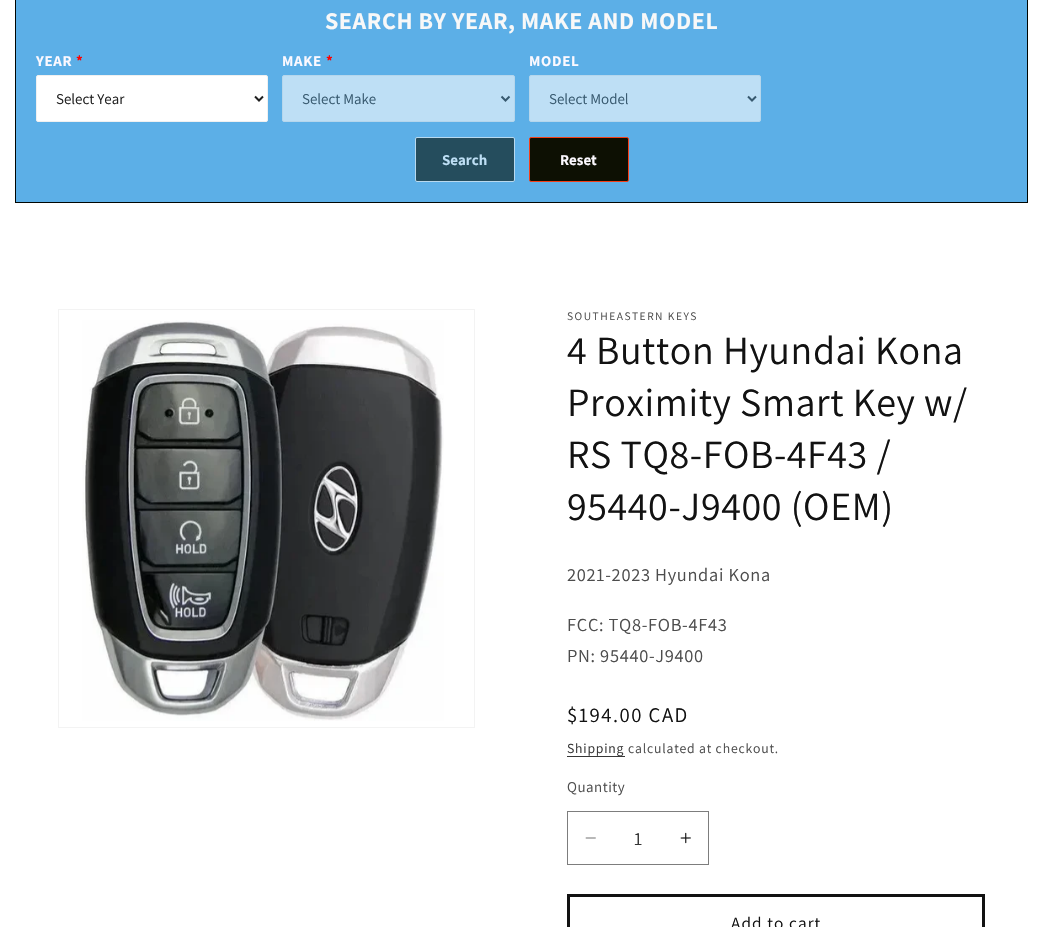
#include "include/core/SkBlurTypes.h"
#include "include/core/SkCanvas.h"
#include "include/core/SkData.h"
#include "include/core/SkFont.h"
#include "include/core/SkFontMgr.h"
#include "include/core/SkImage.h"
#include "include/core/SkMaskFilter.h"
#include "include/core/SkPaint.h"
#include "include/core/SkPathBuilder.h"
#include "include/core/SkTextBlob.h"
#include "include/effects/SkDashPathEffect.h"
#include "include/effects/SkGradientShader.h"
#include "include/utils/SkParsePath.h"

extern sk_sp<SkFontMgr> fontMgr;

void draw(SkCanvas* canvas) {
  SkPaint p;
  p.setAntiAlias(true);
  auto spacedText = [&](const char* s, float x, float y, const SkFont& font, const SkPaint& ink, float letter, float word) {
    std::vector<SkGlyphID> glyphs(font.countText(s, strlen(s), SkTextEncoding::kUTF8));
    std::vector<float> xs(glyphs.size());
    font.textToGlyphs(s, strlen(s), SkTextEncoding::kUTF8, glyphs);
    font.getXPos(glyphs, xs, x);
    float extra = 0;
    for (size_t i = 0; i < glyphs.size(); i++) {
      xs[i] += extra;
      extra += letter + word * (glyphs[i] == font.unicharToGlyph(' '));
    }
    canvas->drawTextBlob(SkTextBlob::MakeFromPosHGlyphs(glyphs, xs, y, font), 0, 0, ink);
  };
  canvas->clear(SK_ColorWHITE);
  p.setColor(SkColorSetRGB(92, 175, 231));
  canvas->drawRect(SkRect::MakeLTRB(15.5f, -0.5f, 1027.5f, 202.5f), p);
  p.setStyle(SkPaint::kStroke_Style);
  p.setStrokeWidth(1);
  p.setColor(SkColorSetRGB(1, 6, 2));
  canvas->drawRect(SkRect::MakeLTRB(15.5f, -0.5f, 1027.5f, 202.5f), p);
  p.setStyle(SkPaint::kFill_Style);
  p.setColor(SK_ColorWHITE);
  canvas->drawRoundRect(SkRect::MakeLTRB(36.5f, 75.5f, 267.5f, 121.5f), 1.5f, 1.5f, p);
  p.setStyle(SkPaint::kStroke_Style);
  p.setColor(SkColorSetRGB(240, 240, 240));
  canvas->drawRoundRect(SkRect::MakeLTRB(36.5f, 75.5f, 267.5f, 121.5f), 1.5f, 1.5f, p);
  p.setStrokeWidth(2);
  p.setColor(SkColorSetRGB(31, 31, 31));
  canvas->drawPath(SkPathBuilder().moveTo(255, 96.5f).lineTo(259, 100.5f).lineTo(263, 96.5f).detach(), p);
  p.setStyle(SkPaint::kFill_Style);
  p.setColor(SkColorSetRGB(190, 223, 245));
  canvas->drawRoundRect(SkRect::MakeLTRB(282.5f, 75.5f, 514.5f, 121.5f), 1.5f, 1.5f, p);
  p.setStyle(SkPaint::kStroke_Style);
  p.setStrokeWidth(1);
  p.setColor(SkColorSetRGB(181, 214, 236));
  canvas->drawRoundRect(SkRect::MakeLTRB(282.5f, 75.5f, 514.5f, 121.5f), 1.5f, 1.5f, p);
  p.setStrokeWidth(2);
  p.setColor(SkColorSetRGB(55, 89, 111));
  canvas->drawPath(SkPathBuilder().moveTo(501.5f, 96.5f).lineTo(505.5f, 100.5f).lineTo(509.5f, 96.5f).detach(), p);
  p.setStyle(SkPaint::kFill_Style);
  p.setColor(SkColorSetRGB(190, 223, 245));
  canvas->drawRoundRect(SkRect::MakeLTRB(529.5f, 75.5f, 760.5f, 121.5f), 1.5f, 1.5f, p);
  p.setStyle(SkPaint::kStroke_Style);
  p.setStrokeWidth(1);
  p.setColor(SkColorSetRGB(181, 214, 236));
  canvas->drawRoundRect(SkRect::MakeLTRB(529.5f, 75.5f, 760.5f, 121.5f), 1.5f, 1.5f, p);
  p.setStrokeWidth(2);
  p.setColor(SkColorSetRGB(55, 89, 111));
  canvas->drawPath(SkPathBuilder().moveTo(748, 96.5f).lineTo(752, 100.5f).lineTo(756, 96.5f).detach(), p);
  p.setStyle(SkPaint::kFill_Style);
  p.setColor(SkColorSetRGB(37, 77, 93));
  canvas->drawRoundRect(SkRect::MakeLTRB(415.5f, 137.5f, 514.5f, 181.5f), 1.5f, 1.5f, p);
  p.setStyle(SkPaint::kStroke_Style);
  p.setStrokeWidth(1);
  p.setColor(SkColorSetRGB(184, 217, 239));
  canvas->drawRoundRect(SkRect::MakeLTRB(415.5f, 137.5f, 514.5f, 181.5f), 1.5f, 1.5f, p);
  p.setStyle(SkPaint::kFill_Style);
  p.setColor(SkColorSetRGB(13, 16, 3));
  canvas->drawRoundRect(SkRect::MakeLTRB(529.5f, 137.5f, 628.5f, 181.5f), 1.5f, 1.5f, p);
  p.setStyle(SkPaint::kStroke_Style);
  p.setColor(SkColorSetRGB(245, 63, 24));
  canvas->drawRoundRect(SkRect::MakeLTRB(529.5f, 137.5f, 628.5f, 181.5f), 1.5f, 1.5f, p);
  p.setColor(SkColorSetRGB(243, 243, 243));
  canvas->drawRect(SkRect::MakeLTRB(58.5f, 309.5f, 474.5f, 727.5f), p);
  canvas->drawImageRect(SkImages::DeferredFromEncodedData(SkData::MakeFromFileName("images/1.png")), SkRect::MakeLTRB(82, 320, 444, 721), SkSamplingOptions());
  p.setStyle(SkPaint::kFill_Style);
  p.setColor(SkColorSetRGB(54, 54, 54));
  canvas->drawRect(SkRect::MakeLTRB(567, 756, 625, 757), p);
  canvas->drawImageRect(SkImages::DeferredFromEncodedData(SkData::MakeFromFileName("images/2.png")), SkRect::MakeLTRB(585, 837, 596, 839), SkSamplingOptions());
  canvas->drawImageRect(SkImages::DeferredFromEncodedData(SkData::MakeFromFileName("images/3.png")), SkRect::MakeLTRB(680, 832, 691, 844), SkSamplingOptions());
  p.setStyle(SkPaint::kStroke_Style);
  p.setColor(SkColorSetRGB(125, 125, 125));
  canvas->drawRect(SkRect::MakeLTRB(567.5f, 811.5f, 708.5f, 864.5f), p);
  p.setStrokeWidth(3);
  p.setColor(SkColorSetRGB(18, 18, 18));
  canvas->drawRect(SkRect::MakeLTRB(568.5f, 895.5f, 983.5f, 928.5f), p);
  SkFont font1(fontMgr->matchFamilyStyle("Assistant", SkFontStyle::Bold()), 24);
  font1.setSubpixel(true);
  p.setStyle(SkPaint::kFill_Style);
  p.setColor(SkColorSetRGB(248, 248, 248));
  spacedText("SEARCH BY YEAR, MAKE AND MODEL", 325, 29, font1, p, 0.6f, 0);
  SkFont font2(fontMgr->matchFamilyStyle("Assistant", SkFontStyle::Bold()), 15);
  font2.setSubpixel(true);
  p.setColor(SkColorSetRGB(252, 249, 255));
  spacedText("YEAR", 36, 66, font2, p, 0.7f, 0);
  p.setColor(SkColorSetRGB(255, 0, 0));
  spacedText("*", 76, 66, font2, p, 0.7f, 0);
  SkFont font3(fontMgr->matchFamilyStyle("Assistant", SkFontStyle::Normal()), 15);
  font3.setSubpixel(true);
  p.setColor(SkColorSetRGB(31, 31, 31));
  canvas->drawString("Select Year", 56, 104, font3, p);
  p.setColor(SkColorSetRGB(252, 249, 255));
  spacedText("MAKE", 282, 66, font2, p, 0.7f, 0);
  p.setColor(SkColorSetRGB(255, 0, 0));
  spacedText("*", 326, 66, font2, p, 0.7f, 0);
  p.setColor(SkColorSetRGB(55, 89, 111));
  canvas->drawString("Select Make", 302, 104, font3, p);
  p.setColor(SkColorSetRGB(252, 249, 255));
  spacedText("MODEL", 529, 66, font2, p, 0.7f, 0);
  p.setColor(SkColorSetRGB(55, 89, 111));
  canvas->drawString("Select Model", 549, 104, font3, p);
  p.setColor(SkColorSetRGB(190, 223, 245));
  canvas->drawString("Search", 442, 165, font2, p);
  p.setColor(SkColorSetRGB(252, 249, 255));
  canvas->drawString("Reset", 560, 165, font2, p);
  SkFont font4(fontMgr->matchFamilyStyle("Assistant", SkFontStyle::Normal()), 11.5f);
  font4.setSubpixel(true);
  p.setColor(SkColorSetRGB(77, 77, 77));
  spacedText("SOUTHEASTERN KEYS", 567, 320, font4, p, 1.5f, 0);
  SkFont font5(fontMgr->matchFamilyStyle("Assistant", SkFontStyle::Normal()), 40);
  font5.setSubpixel(true);
  p.setColor(SkColorSetRGB(18, 18, 18));
  spacedText("4 Button Hyundai Kona", 567, 364, font5, p, 0.6f, 0);
  spacedText("Proximity Smart Key w/", 567, 416, font5, p, 0.6f, 0);
  spacedText("RS TQ8-FOB-4F43 /", 567, 468, font5, p, 0.6f, 0);
  spacedText("95440-J9400 (OEM)", 567, 520, font5, p, 0.6f, 0);
  SkFont font6(fontMgr->matchFamilyStyle("Assistant", SkFontStyle::Normal()), 18.4f);
  font6.setSubpixel(true);
  p.setColor(SkColorSetRGB(77, 77, 77));
  spacedText("2021-2023 Hyundai Kona", 567, 581, font6, p, 0.7f, 0);
  spacedText("FCC: TQ8-FOB-4F43", 567, 631, font6, p, 0.7f, 0);
  spacedText("PN: 95440-J9400", 567, 662, font6, p, 0.7f, 0);
  SkFont font7(fontMgr->matchFamilyStyle("Assistant", SkFontStyle::Normal()), 20.75f);
  font7.setSubpixel(true);
  p.setColor(SkColorSetRGB(18, 18, 18));
  spacedText("$194.00 CAD", 567, 722, font7, p, 1.5f, 0);
  SkFont font8(fontMgr->matchFamilyStyle("Assistant", SkFontStyle::Normal()), 13.75f);
  font8.setSubpixel(true);
  p.setColor(SkColorSetRGB(53, 53, 53));
  spacedText("Shipping", 567, 753, font8, p, 0.8f, 0);
  p.setColor(SkColorSetRGB(77, 77, 77));
  spacedText("calculated at checkout.", 628, 753, font8, p, 0.8f, 0);
  spacedText("Quantity", 567, 792, font3, p, 0.5f, 0);
  p.setColor(SkColorSetRGB(53, 53, 53));
  canvas->drawString("1", 634, 845, font6, p);
  SkFont font9(fontMgr->matchFamilyStyle("Assistant", SkFontStyle::Normal()), 17.25f);
  font9.setSubpixel(true);
  p.setColor(SkColorSetRGB(18, 18, 18));
  spacedText("Add to cart", 731, 929, font9, p, 1.1f, 0);
}
